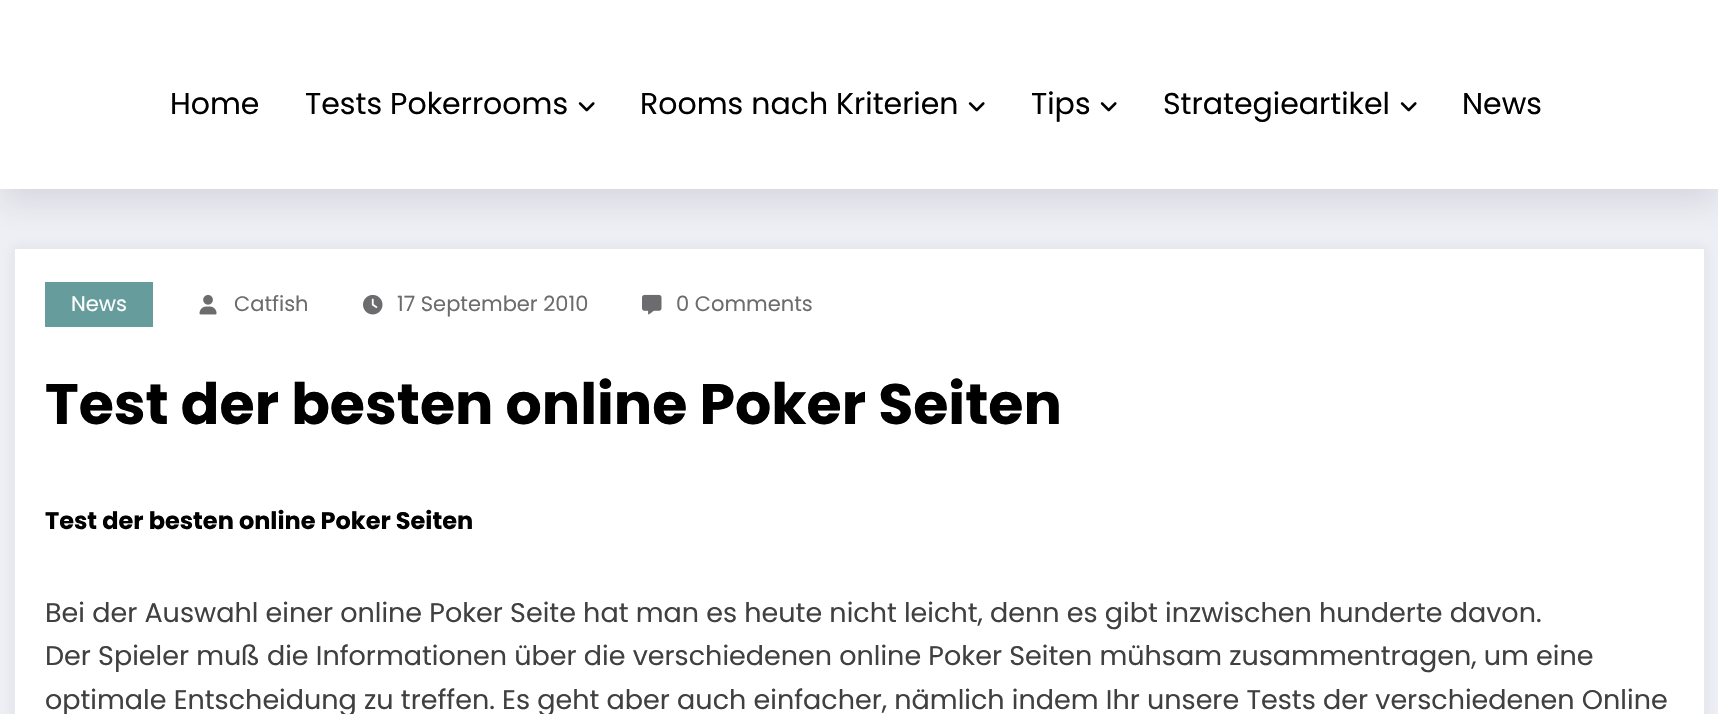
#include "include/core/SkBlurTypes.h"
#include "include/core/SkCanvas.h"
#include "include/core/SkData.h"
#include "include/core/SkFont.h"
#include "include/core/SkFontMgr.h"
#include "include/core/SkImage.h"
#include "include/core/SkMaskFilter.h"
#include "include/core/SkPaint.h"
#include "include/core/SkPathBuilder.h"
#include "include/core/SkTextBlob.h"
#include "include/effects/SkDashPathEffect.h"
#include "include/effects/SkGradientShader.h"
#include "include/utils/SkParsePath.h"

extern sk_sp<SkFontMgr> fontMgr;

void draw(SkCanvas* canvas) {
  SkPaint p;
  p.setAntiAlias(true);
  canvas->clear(SkColorSetRGB(238, 238, 245));
  p.setColor(SkColorSetARGB(13, 23, 23, 35));
  p.setMaskFilter(SkMaskFilter::MakeBlur(kNormal_SkBlurStyle, 6));
  canvas->drawRect(SkRect::MakeLTRB(12, 246, 1707, 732), p);
  p.setMaskFilter(nullptr);
  p.setColor(SK_ColorWHITE);
  canvas->drawRect(SkRect::MakeLTRB(15, 249, 1704, 714), p);
  p.setColor(SkColorSetARGB(26, 20, 18, 35));
  p.setMaskFilter(SkMaskFilter::MakeBlur(kNormal_SkBlurStyle, 15));
  canvas->drawRect(SkRect::MakeLTRB(0, 15, 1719, 204), p);
  p.setMaskFilter(nullptr);
  p.setColor(SK_ColorWHITE);
  canvas->drawRect(SkRect::MakeLTRB(0, 0, 1718, 189), p);
  canvas->drawImageRect(SkImages::DeferredFromEncodedData(SkData::MakeFromFileName("images/1.png")), SkRect::MakeLTRB(578, 102, 595, 112), SkSamplingOptions());
  canvas->drawImageRect(SkImages::DeferredFromEncodedData(SkData::MakeFromFileName("images/1.png")), SkRect::MakeLTRB(968, 102, 985, 112), SkSamplingOptions());
  canvas->drawImageRect(SkImages::DeferredFromEncodedData(SkData::MakeFromFileName("images/1.png")), SkRect::MakeLTRB(1100, 102, 1117, 112), SkSamplingOptions());
  canvas->drawImageRect(SkImages::DeferredFromEncodedData(SkData::MakeFromFileName("images/1.png")), SkRect::MakeLTRB(1400, 102, 1417, 112), SkSamplingOptions());
  p.setColor(SkColorSetRGB(102, 156, 155));
  canvas->drawRect(SkRect::MakeLTRB(45, 282, 153, 327), p);
  canvas->drawImageRect(SkImages::DeferredFromEncodedData(SkData::MakeFromFileName("images/2.png")), SkRect::MakeLTRB(199, 295, 217, 315), SkSamplingOptions());
  canvas->drawImageRect(SkImages::DeferredFromEncodedData(SkData::MakeFromFileName("images/3.png")), SkRect::MakeLTRB(363, 294, 383, 315), SkSamplingOptions());
  canvas->drawImageRect(SkImages::DeferredFromEncodedData(SkData::MakeFromFileName("images/4.png")), SkRect::MakeLTRB(642, 294, 662, 315), SkSamplingOptions());
  SkFont font1(fontMgr->matchFamilyStyle("Poppins", SkFontStyle::Normal()), 30);
  font1.setSubpixel(true);
  p.setColor(SK_ColorBLACK);
  canvas->drawString("Home", 170, 114, font1, p);
  canvas->drawString("Tests Pokerrooms", 305, 114, font1, p);
  canvas->drawString("Rooms nach Kriterien", 640, 114, font1, p);
  canvas->drawString("Tips", 1031, 114, font1, p);
  canvas->drawString("Strategieartikel", 1163, 114, font1, p);
  canvas->drawString("News", 1462, 114, font1, p);
  SkFont font2(fontMgr->matchFamilyStyle("Poppins", SkFontStyle::Normal()), 21);
  font2.setSubpixel(true);
  p.setColor(SK_ColorWHITE);
  canvas->drawString("News", 71, 311, font2, p);
  p.setColor(SkColorSetRGB(108, 108, 111));
  canvas->drawString("Catfish", 234, 311, font2, p);
  canvas->drawString("17 September 2010", 397, 311, font2, p);
  canvas->drawString("0 Comments", 676, 311, font2, p);
  SkFont font3(fontMgr->matchFamilyStyle("Poppins", SkFontStyle::Bold()), 57);
  font3.setSubpixel(true);
  p.setColor(SK_ColorBLACK);
  canvas->drawString("Test der besten online Poker Seiten", 45, 424, font3, p);
  SkFont font4(fontMgr->matchFamilyStyle("Poppins", SkFontStyle::Bold()), 24);
  font4.setSubpixel(true);
  canvas->drawString("Test der besten online Poker Seiten", 45, 529, font4, p);
  SkFont font5(fontMgr->matchFamilyStyle("Poppins", SkFontStyle::Normal()), 27);
  font5.setSubpixel(true);
  p.setColor(SkColorSetRGB(64, 64, 64));
  canvas->drawString("Bei der Auswahl einer online Poker Seite hat man es heute nicht leicht, denn es gibt inzwischen hunderte davon.", 45, 622, font5, p);
  canvas->drawString("Der Spieler muß die Informationen über die verschiedenen online Poker Seiten mühsam zusammentragen, um eine", 45, 665, font5, p);
  canvas->drawString("optimale Entscheidung zu treffen. Es geht aber auch einfacher, nämlich indem Ihr unsere Tests der verschiedenen Online", 45, 709, font5, p);
}
